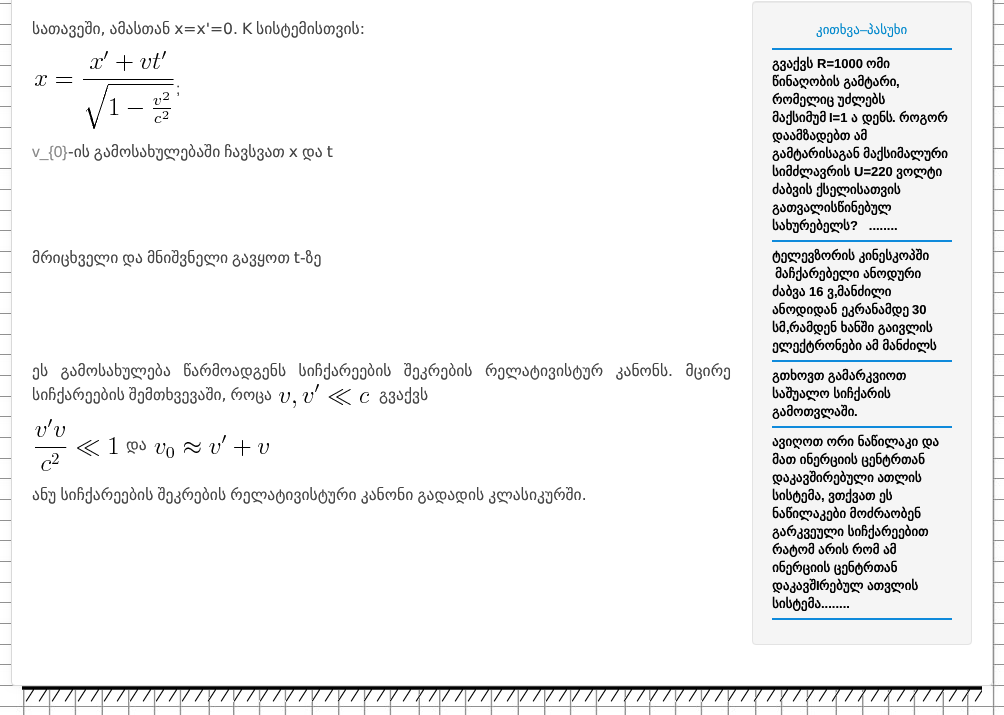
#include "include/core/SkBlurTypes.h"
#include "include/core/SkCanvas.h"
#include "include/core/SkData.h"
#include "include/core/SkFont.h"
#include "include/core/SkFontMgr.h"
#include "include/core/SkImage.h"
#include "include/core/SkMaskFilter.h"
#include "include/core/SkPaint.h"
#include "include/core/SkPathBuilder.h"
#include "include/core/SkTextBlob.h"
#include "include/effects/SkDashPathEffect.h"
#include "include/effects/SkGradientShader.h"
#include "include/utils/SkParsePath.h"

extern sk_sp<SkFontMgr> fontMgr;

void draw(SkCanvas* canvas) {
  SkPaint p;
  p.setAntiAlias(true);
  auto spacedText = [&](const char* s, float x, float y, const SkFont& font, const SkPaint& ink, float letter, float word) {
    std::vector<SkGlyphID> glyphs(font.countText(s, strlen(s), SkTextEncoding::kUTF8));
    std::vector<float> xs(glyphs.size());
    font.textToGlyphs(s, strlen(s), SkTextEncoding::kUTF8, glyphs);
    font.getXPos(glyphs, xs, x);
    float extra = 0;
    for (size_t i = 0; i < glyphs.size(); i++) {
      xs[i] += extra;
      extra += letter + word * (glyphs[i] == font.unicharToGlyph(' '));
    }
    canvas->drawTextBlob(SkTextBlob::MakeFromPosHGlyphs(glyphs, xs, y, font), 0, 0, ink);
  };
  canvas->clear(SK_ColorWHITE);
  canvas->drawImageRect(SkImages::DeferredFromEncodedData(SkData::MakeFromFileName("images/1.png")), SkRect::MakeLTRB(0, 0, 1004, 715), SkSamplingOptions());
  p.setColor(SkColorSetARGB(13, 0, 0, 0));
  p.setMaskFilter(SkMaskFilter::MakeBlur(kNormal_SkBlurStyle, 3));
  canvas->drawRoundRect(SkRect::MakeLTRB(11, -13, 993, 686), 4, 4, p);
  p.setMaskFilter(nullptr);
  p.setColor(SK_ColorWHITE);
  canvas->drawRoundRect(SkRect::MakeLTRB(11, -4, 993, 686), 4, 4, p);
  p.setStyle(SkPaint::kStroke_Style);
  p.setStrokeWidth(1);
  p.setColor(SkColorSetARGB(38, 0, 0, 0));
  canvas->drawRoundRect(SkRect::MakeLTRB(11.5f, -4.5f, 992.5f, 685.5f), 3.5f, 3.5f, p);
  canvas->drawImageRect(SkImages::DeferredFromEncodedData(SkData::MakeFromFileName("images/2.png")), SkRect::MakeLTRB(35, 51, 174, 129), SkSamplingOptions());
  canvas->drawImageRect(SkImages::DeferredFromEncodedData(SkData::MakeFromFileName("images/3.png")), SkRect::MakeLTRB(279, 384, 369, 408), SkSamplingOptions());
  canvas->drawImageRect(SkImages::DeferredFromEncodedData(SkData::MakeFromFileName("images/4.png")), SkRect::MakeLTRB(35, 419, 118, 471), SkSamplingOptions());
  canvas->drawImageRect(SkImages::DeferredFromEncodedData(SkData::MakeFromFileName("images/5.png")), SkRect::MakeLTRB(154, 435, 269, 458), SkSamplingOptions());
  p.setStyle(SkPaint::kFill_Style);
  p.setColor(SkColorSetRGB(245, 245, 245));
  canvas->drawRoundRect(SkRect::MakeLTRB(752, 1, 972, 645), 4, 4, p);
  p.setColor(SkColorSetRGB(233, 233, 233));
  canvas->drawPath(SkPathBuilder().moveTo(756, 3).lineTo(968, 3).cubicTo(970, 3, 971, 4, 971, 6).lineTo(971, 5).cubicTo(971, 3, 970, 2, 968, 2).lineTo(756, 2).cubicTo(754, 2, 753, 3, 753, 5).lineTo(753, 6).cubicTo(753, 4, 754, 3, 756, 3).close().detach(), p);
  p.setStyle(SkPaint::kStroke_Style);
  p.setColor(SkColorSetRGB(227, 227, 227));
  canvas->drawRoundRect(SkRect::MakeLTRB(752.5f, 1.5f, 971.5f, 644.5f), 3.5f, 3.5f, p);
  p.setStyle(SkPaint::kFill_Style);
  p.setColor(SkColorSetRGB(15, 138, 219));
  canvas->drawRect(SkRect::MakeLTRB(772, 48, 952, 50), p);
  canvas->drawRect(SkRect::MakeLTRB(772, 240, 952, 242), p);
  canvas->drawRect(SkRect::MakeLTRB(772, 360, 952, 362), p);
  canvas->drawRect(SkRect::MakeLTRB(772, 426, 952, 428), p);
  canvas->drawRect(SkRect::MakeLTRB(772, 618, 952, 620), p);
  canvas->drawImageRect(SkImages::DeferredFromEncodedData(SkData::MakeFromFileName("images/6.png")), SkRect::MakeLTRB(22, 686, 982, 702), SkSamplingOptions());
  SkFont font1(fontMgr->matchFamilyStyle("DejaVu Sans", SkFontStyle::Normal()), 15.6f);
  font1.setSubpixel(true);
  p.setColor(SkColorSetRGB(68, 68, 68));
  spacedText("სათავეში, ამასთან x=x'=0. K სისტემისთვის:", 32, 34, font1, p, 0, -1);
  SkFont font2(fontMgr->matchFamilyStyle("Liberation Sans", SkFontStyle::Normal()), 15.6f);
  font2.setSubpixel(true);
  canvas->drawString(";", 176, 94, font2, p);
  p.setColor(SkColorSetRGB(136, 136, 136));
  canvas->drawString("v_{0}", 32, 157, font2, p);
  p.setColor(SkColorSetRGB(68, 68, 68));
  spacedText("-ის გამოსახულებაში ჩავსვათ x და t", 68, 157, font1, p, 0, -1);
  spacedText("მრიცხველი და მნიშვნელი გავყოთ t-ზე", 32, 263, font1, p, 0, -1);
  spacedText("ეს გამოსახულება წარმოადგენს სიჩქარეების შეკრების რელატივისტურ კანონს. მცირე", 32, 376, font1, p, 0, 7.5f);
  spacedText("სიჩქარეების შემთხვევაში, როცა", 32, 400, font1, p, 0, -1);
  canvas->drawString("გვაქვს", 379, 400, font1, p);
  canvas->drawString("და", 126, 450, font1, p);
  spacedText("ანუ სიჩქარეების შეკრების რელატივისტური კანონი გადადის კლასიკურში.", 32, 500, font1, p, 0, -0.75f);
  SkFont font3(fontMgr->matchFamilyStyle("DejaVu Sans", SkFontStyle::Normal()), 13);
  font3.setSubpixel(true);
  p.setColor(SkColorSetRGB(0, 136, 204));
  canvas->drawString("კითხვა", 816, 34, font3, p);
  SkFont font4(fontMgr->matchFamilyStyle("Liberation Sans", SkFontStyle::Normal()), 13);
  font4.setSubpixel(true);
  canvas->drawString("–", 860, 34, font4, p);
  canvas->drawString("პასუხი", 867, 34, font3, p);
  SkFont font5(fontMgr->matchFamilyStyle("DejaVu Sans", SkFontStyle::Bold()), 13);
  font5.setSubpixel(true);
  p.setColor(SK_ColorBLACK);
  canvas->drawString("გვაქვს", 772, 68, font5, p);
  SkFont font6(fontMgr->matchFamilyStyle("Liberation Sans", SkFontStyle::Bold()), 13);
  font6.setSubpixel(true);
  canvas->drawString("R=1000", 817, 68, font6, p);
  canvas->drawString("ომი", 866, 68, font5, p);
  spacedText("წინაღობის გამტარი", 772, 86, font5, p, 0, -0.5f);
  canvas->drawString(",", 896, 86, font6, p);
  spacedText("რომელიც უძლებს", 772, 104, font5, p, 0, -0.5f);
  canvas->drawString("მაქსიმუმ", 772, 122, font5, p);
  canvas->drawString("I=1", 829, 122, font6, p);
  canvas->drawString("ა დენს", 851, 122, font5, p);
  canvas->drawString(".", 892, 122, font6, p);
  canvas->drawString("როგორ", 899, 122, font5, p);
  spacedText("დაამზადებთ ამ", 772, 140, font5, p, 0, -0.5f);
  spacedText("გამტარისაგან მაქსიმალური", 772, 158, font5, p, 0, -0.5f);
  canvas->drawString("სიმძლავრის", 772, 176, font5, p);
  canvas->drawString("U=220", 854, 176, font6, p);
  canvas->drawString("ვოლტი", 896, 176, font5, p);
  spacedText("ძაბვის ქსელისათვის", 772, 194, font5, p, 0, -0.5f);
  canvas->drawString("გათვალისწინებულ", 772, 212, font5, p);
  canvas->drawString("სახურებელს", 772, 230, font5, p);
  canvas->drawString("?   ........", 850, 230, font6, p);
  spacedText("ტელევზორის კინესკოპში", 772, 260, font5, p, 0, -0.5f);
  spacedText("მაჩქარებელი ანოდური", 775, 278, font5, p, 0, -0.5f);
  canvas->drawString("ძაბვა", 772, 296, font5, p);
  canvas->drawString("16", 809, 296, font6, p);
  canvas->drawString("ვ", 827, 296, font5, p);
  canvas->drawString(",", 834, 296, font6, p);
  canvas->drawString("მანძილი", 837, 296, font5, p);
  canvas->drawString("ანოდიდან ეკრანამდე", 772, 314, font5, p);
  canvas->drawString("30", 912, 314, font6, p);
  canvas->drawString("სმ", 772, 332, font5, p);
  canvas->drawString(",", 786, 332, font6, p);
  spacedText("რამდენ ხანში გაივლის", 789, 332, font5, p, 0, -0.5f);
  spacedText("ელექტრონები ამ მანძილს", 772, 350, font5, p, 0, -0.5f);
  spacedText("გთხოვთ გამარკვიოთ", 772, 380, font5, p, 0, -0.5f);
  spacedText("საშუალო სიჩქარის", 772, 398, font5, p, 0, -0.5f);
  canvas->drawString("გამოთვლაში", 772, 416, font5, p);
  canvas->drawString(".", 854, 416, font6, p);
  spacedText("ავიღოთ ორი ნაწილაკი და", 772, 446, font5, p, 0, -0.5f);
  spacedText("მათ ინერციის ცენტრთან", 772, 464, font5, p, 0, -0.5f);
  spacedText("დაკავშირებული ათლის", 772, 482, font5, p, 0, -0.5f);
  canvas->drawString("სისტემა", 772, 500, font5, p);
  canvas->drawString(",", 821, 500, font6, p);
  canvas->drawString("ვთქვათ", 828, 500, font5, p);
  canvas->drawString("ეს", 879, 500, font5, p);
  spacedText("ნაწილაკები მოძრაობენ", 772, 518, font5, p, 0, -0.5f);
  spacedText("გარკვეული სიჩქარეებით", 772, 536, font5, p, 0, -0.5f);
  spacedText("რატომ არის", 772, 554, font5, p, 0, -0.5f);
  spacedText("რომ ამ", 852, 554, font5, p, 0, -0.5f);
  spacedText("ინერციის ცენტრთან", 772, 572, font5, p, 0, -0.5f);
  canvas->drawString("დაკავშ", 772, 590, font5, p);
  canvas->drawString("I", 816, 590, font6, p);
  spacedText("რებულ ათვლის", 819, 590, font5, p, 0, -0.5f);
  canvas->drawString("სისტემა", 772, 608, font5, p);
  canvas->drawString("........", 821, 608, font6, p);
}
